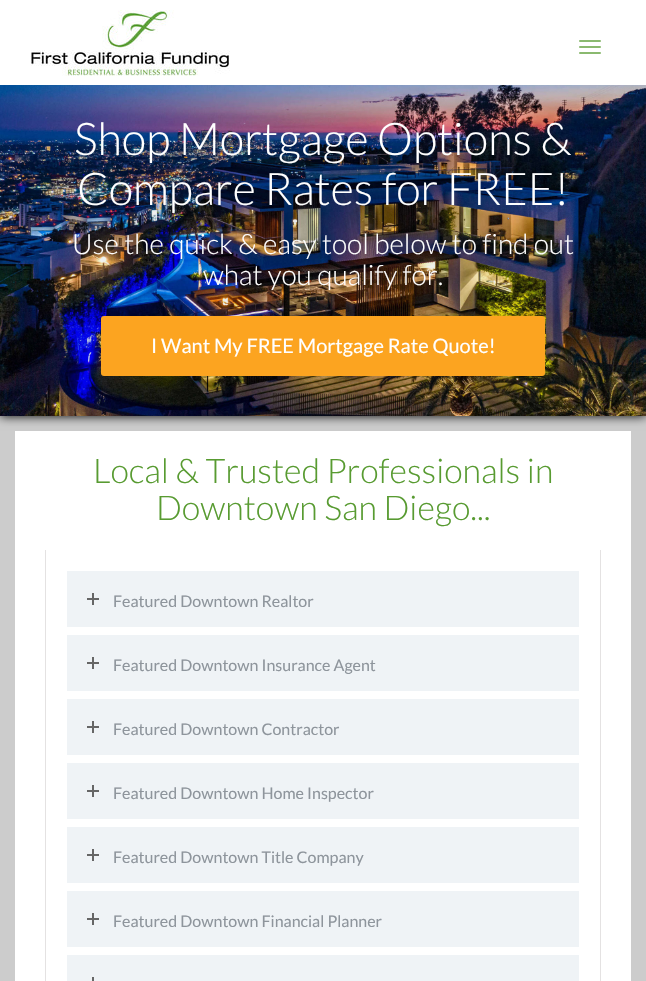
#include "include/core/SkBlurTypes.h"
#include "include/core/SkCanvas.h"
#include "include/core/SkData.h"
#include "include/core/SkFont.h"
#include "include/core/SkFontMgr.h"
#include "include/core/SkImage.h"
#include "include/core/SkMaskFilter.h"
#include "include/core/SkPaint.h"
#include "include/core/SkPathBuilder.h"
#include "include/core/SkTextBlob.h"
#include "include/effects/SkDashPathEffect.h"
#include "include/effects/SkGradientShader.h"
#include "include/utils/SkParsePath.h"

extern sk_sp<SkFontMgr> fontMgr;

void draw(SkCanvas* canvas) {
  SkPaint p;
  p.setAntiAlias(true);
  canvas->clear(SkColorSetRGB(204, 204, 204));
  p.setColor(SK_ColorBLACK);
  p.setMaskFilter(SkMaskFilter::MakeBlur(kNormal_SkBlurStyle, 5));
  canvas->drawRect(SkRect::MakeLTRB(0, 85, 646, 416), p);
  p.setMaskFilter(nullptr);
  p.setColor(SK_ColorWHITE);
  canvas->drawRect(SkRect::MakeLTRB(0, 0, 646, 85), p);
  canvas->drawImageRect(SkImages::DeferredFromEncodedData(SkData::MakeFromFileName("images/1.png")), SkRect::MakeLTRB(30, 10, 230, 76), SkSamplingOptions());
  p.setColor(SkColorSetRGB(138, 185, 111));
  canvas->drawRoundRect(SkRect::MakeLTRB(579, 40, 601, 42), 1, 1, p);
  canvas->drawRoundRect(SkRect::MakeLTRB(579, 46, 601, 48), 1, 1, p);
  canvas->drawRoundRect(SkRect::MakeLTRB(579, 52, 601, 54), 1, 1, p);
  canvas->drawImageRect(SkImages::DeferredFromEncodedData(SkData::MakeFromFileName("images/2.png")), SkRect::MakeLTRB(0, 85, 646, 416), SkSamplingOptions());
  p.setColor(SkColorSetRGB(252, 164, 32));
  canvas->drawRoundRect(SkRect::MakeLTRB(101, 316, 545, 376), 3, 3, p);
  p.setColor(SK_ColorWHITE);
  canvas->drawRect(SkRect::MakeLTRB(15, 431, 631, 981), p);
  p.setColor(SkColorSetRGB(228, 226, 226));
  canvas->drawPath(SkPathBuilder(SkPathFillType::kEvenOdd).moveTo(45, 550).lineTo(601, 550).lineTo(601, 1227).cubicTo(601, 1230, 599, 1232, 596, 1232).lineTo(50, 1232).cubicTo(47, 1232, 45, 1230, 45, 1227).close().moveTo(46, 550).lineTo(600, 550).lineTo(600, 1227).cubicTo(600, 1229, 598, 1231, 596, 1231).lineTo(50, 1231).cubicTo(48, 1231, 46, 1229, 46, 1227).close().detach(), p);
  p.setColor(SkColorSetRGB(239, 243, 246));
  canvas->drawRect(SkRect::MakeLTRB(67, 571, 579, 627), p);
  p.setColor(SkColorSetRGB(102, 102, 102));
  canvas->drawRect(SkRect::MakeLTRB(87, 598, 99, 600), p);
  canvas->drawRect(SkRect::MakeLTRB(92, 593, 94, 605), p);
  p.setColor(SkColorSetRGB(239, 243, 246));
  canvas->drawRect(SkRect::MakeLTRB(67, 635, 579, 691), p);
  p.setColor(SkColorSetRGB(102, 102, 102));
  canvas->drawRect(SkRect::MakeLTRB(87, 662, 99, 664), p);
  canvas->drawRect(SkRect::MakeLTRB(92, 657, 94, 669), p);
  p.setColor(SkColorSetRGB(239, 243, 246));
  canvas->drawRect(SkRect::MakeLTRB(67, 699, 579, 755), p);
  p.setColor(SkColorSetRGB(102, 102, 102));
  canvas->drawRect(SkRect::MakeLTRB(87, 726, 99, 728), p);
  canvas->drawRect(SkRect::MakeLTRB(92, 721, 94, 733), p);
  p.setColor(SkColorSetRGB(239, 243, 246));
  canvas->drawRect(SkRect::MakeLTRB(67, 763, 579, 819), p);
  p.setColor(SkColorSetRGB(102, 102, 102));
  canvas->drawRect(SkRect::MakeLTRB(87, 790, 99, 792), p);
  canvas->drawRect(SkRect::MakeLTRB(92, 785, 94, 797), p);
  p.setColor(SkColorSetRGB(239, 243, 246));
  canvas->drawRect(SkRect::MakeLTRB(67, 827, 579, 883), p);
  p.setColor(SkColorSetRGB(102, 102, 102));
  canvas->drawRect(SkRect::MakeLTRB(87, 854, 99, 856), p);
  canvas->drawRect(SkRect::MakeLTRB(92, 849, 94, 861), p);
  p.setColor(SkColorSetRGB(239, 243, 246));
  canvas->drawRect(SkRect::MakeLTRB(67, 891, 579, 947), p);
  p.setColor(SkColorSetRGB(102, 102, 102));
  canvas->drawRect(SkRect::MakeLTRB(87, 918, 99, 920), p);
  canvas->drawRect(SkRect::MakeLTRB(92, 913, 94, 925), p);
  p.setColor(SkColorSetRGB(239, 243, 246));
  canvas->drawRect(SkRect::MakeLTRB(67, 955, 579, 981), p);
  p.setColor(SkColorSetRGB(102, 102, 102));
  canvas->drawRect(SkRect::MakeLTRB(92, 977, 94, 981), p);
  SkFont font1(fontMgr->matchFamilyStyle("Lato", SkFontStyle(300, SkFontStyle::kNormal_Width, SkFontStyle::kUpright_Slant)), 45);
  font1.setSubpixel(true);
  p.setColor(SK_ColorWHITE);
  canvas->drawString("Shop Mortgage Options &", 74, 155, font1, p);
  canvas->drawString("Compare Rates for FREE!", 77, 205, font1, p);
  SkFont font2(fontMgr->matchFamilyStyle("Lato", SkFontStyle(300, SkFontStyle::kNormal_Width, SkFontStyle::kUpright_Slant)), 28);
  font2.setSubpixel(true);
  canvas->drawString("Use the quick & easy tool below to find out", 72, 254, font2, p);
  canvas->drawString("what you qualify for.", 203, 285, font2, p);
  SkFont font3(fontMgr->matchFamilyStyle("Lato", SkFontStyle::Normal()), 20);
  font3.setSubpixel(true);
  canvas->drawString("I Want My FREE Mortgage Rate Quote!", 151, 353, font3, p);
  SkFont font4(fontMgr->matchFamilyStyle("Lato", SkFontStyle(300, SkFontStyle::kNormal_Width, SkFontStyle::kUpright_Slant)), 34);
  font4.setSubpixel(true);
  p.setColor(SkColorSetRGB(88, 155, 49));
  canvas->drawString("Local & Trusted Professionals in", 93, 483, font4, p);
  canvas->drawString("Downtown San Diego...", 156, 520, font4, p);
  SkFont font5(fontMgr->matchFamilyStyle("Lato", SkFontStyle::Normal()), 16);
  font5.setSubpixel(true);
  p.setColor(SkColorSetRGB(142, 149, 156));
  canvas->drawString("Featured Downtown Realtor", 113, 607, font5, p);
  canvas->drawString("Featured Downtown Insurance Agent", 113, 671, font5, p);
  canvas->drawString("Featured Downtown Contractor", 113, 735, font5, p);
  canvas->drawString("Featured Downtown Home Inspector", 113, 799, font5, p);
  canvas->drawString("Featured Downtown Title Company", 113, 863, font5, p);
  canvas->drawString("Featured Downtown Financial Planner", 113, 927, font5, p);
}
